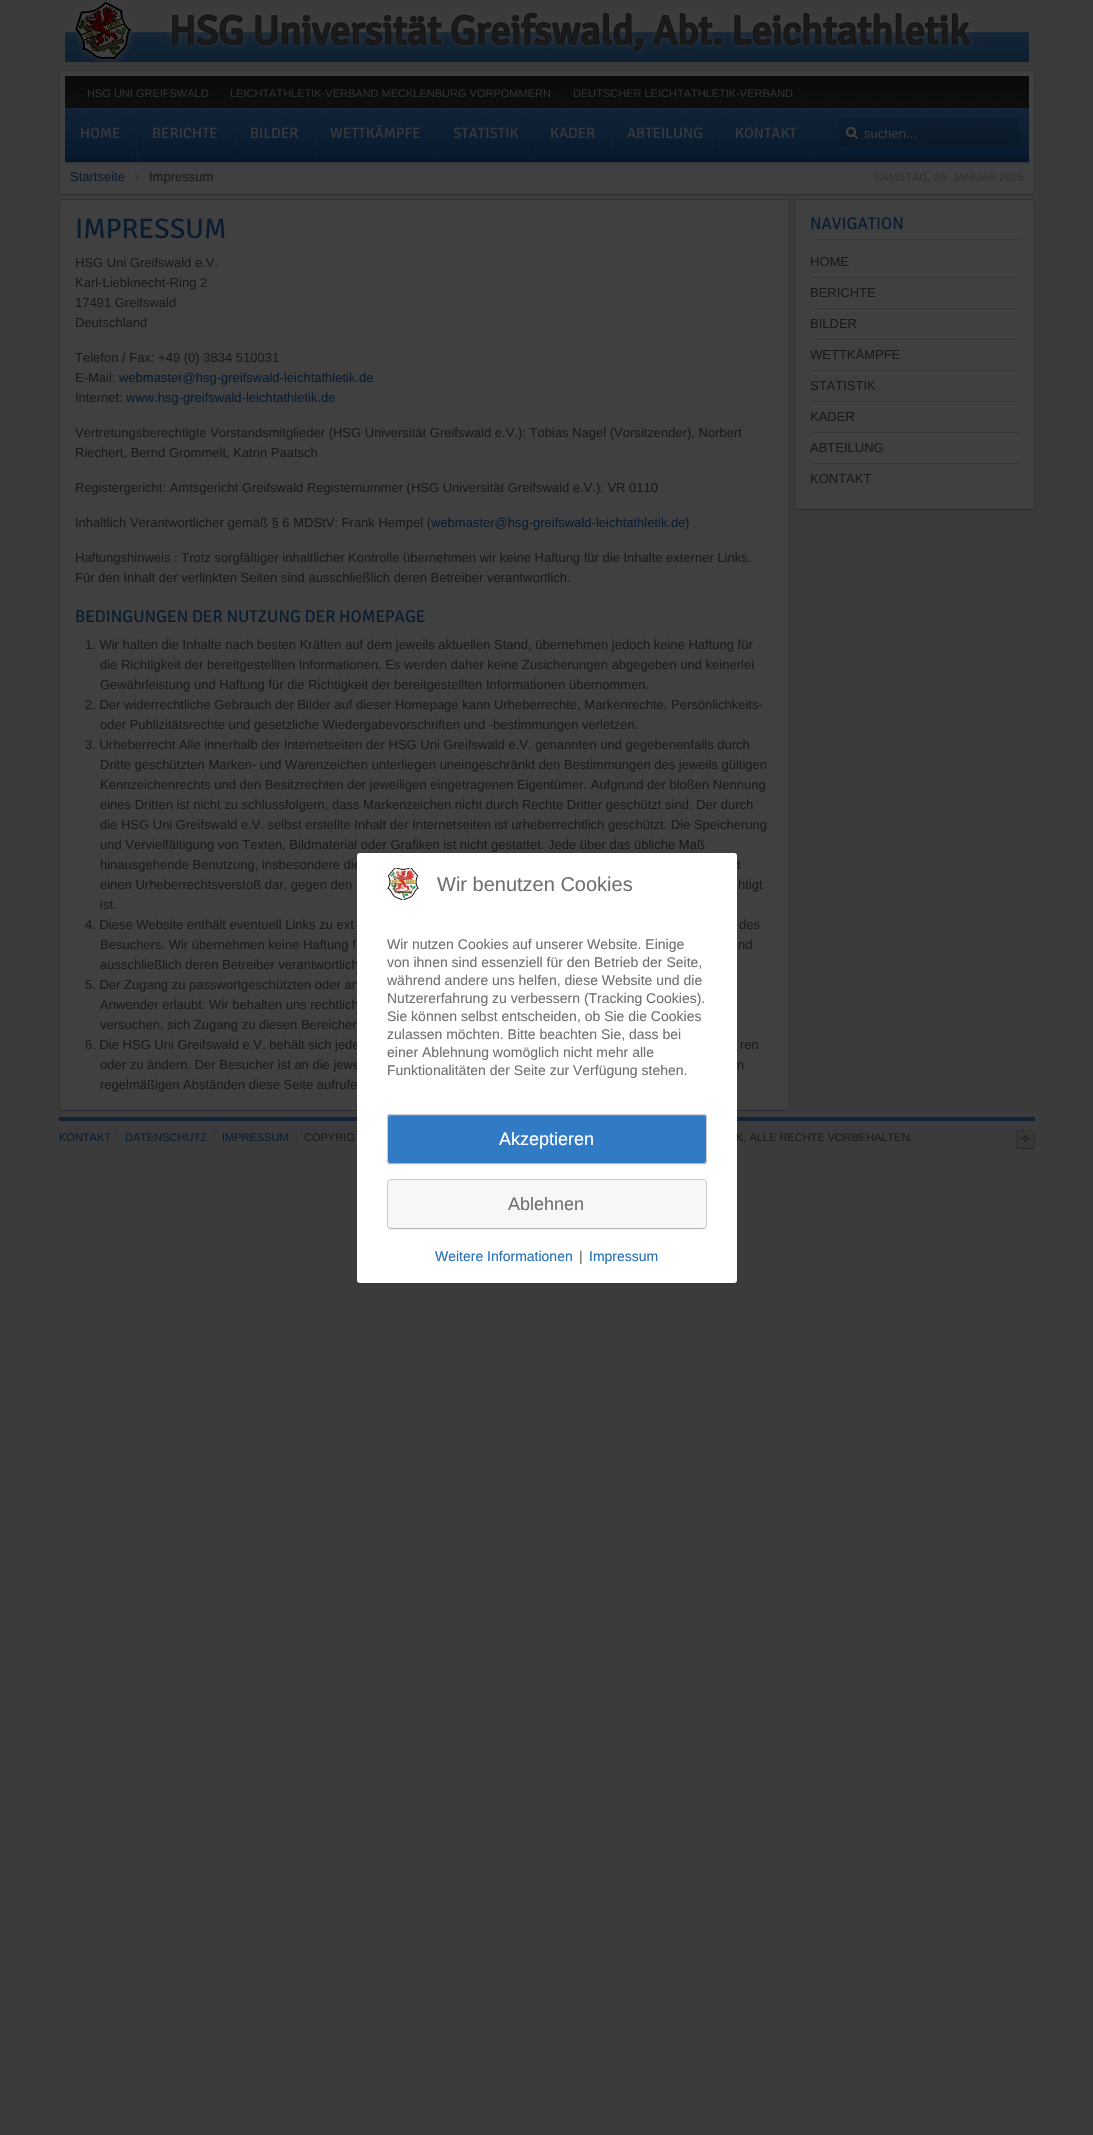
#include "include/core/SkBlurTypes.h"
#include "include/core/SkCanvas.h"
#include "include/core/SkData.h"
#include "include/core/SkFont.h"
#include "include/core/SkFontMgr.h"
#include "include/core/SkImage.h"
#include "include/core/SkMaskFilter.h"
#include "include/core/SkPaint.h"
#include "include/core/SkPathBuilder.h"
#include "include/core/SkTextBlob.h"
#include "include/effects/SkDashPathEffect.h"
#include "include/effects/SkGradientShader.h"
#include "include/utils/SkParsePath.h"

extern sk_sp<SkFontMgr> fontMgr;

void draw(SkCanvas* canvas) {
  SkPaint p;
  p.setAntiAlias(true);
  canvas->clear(SkColorSetRGB(59, 59, 59));
  canvas->drawImageRect(SkImages::DeferredFromEncodedData(SkData::MakeFromFileName("images/1.png")), SkRect::MakeLTRB(65, 2, 1029, 62), SkSamplingOptions());
  p.setColor(SkColorSetRGB(64, 64, 64));
  canvas->drawRoundRect(SkRect::MakeLTRB(60, 71, 1034, 194), 3, 3, p);
  p.setStyle(SkPaint::kStroke_Style);
  p.setStrokeWidth(1);
  p.setColor(SkColorSetARGB(64, 0, 0, 0));
  canvas->drawPath(SkPathBuilder().moveTo(1033.5f, 193.5f).lineTo(1031, 194.5f).lineTo(63, 194.5f).lineTo(60.5f, 193.5f).detach(), p);
  p.setColor(SkColorSetARGB(38, 0, 0, 0));
  canvas->drawPath(SkPathBuilder().moveTo(60.5f, 193.5f).lineTo(59.5f, 191).lineTo(59.5f, 93.5f).cubicTo(59.5f, 86.5f, 56, 70.5f, 63, 70.5f).lineTo(1031, 70.5f).cubicTo(1038, 70.5f, 1034.5f, 86.5f, 1034.5f, 93.5f).lineTo(1034.5f, 191).lineTo(1033.5f, 193.5f).detach(), p);
  canvas->drawImageRect(SkImages::DeferredFromEncodedData(SkData::MakeFromFileName("images/2.png")), SkRect::MakeLTRB(65, 76, 1029, 108), SkSamplingOptions());
  canvas->drawImageRect(SkImages::DeferredFromEncodedData(SkData::MakeFromFileName("images/3.png")), SkRect::MakeLTRB(79, 91, 84, 96), SkSamplingOptions());
  p.setStyle(SkPaint::kFill_Style);
  p.setColor(SkColorSetARGB(51, 0, 0, 0));
  canvas->drawRect(SkRect::MakeLTRB(222, 91, 226, 96), p);
  canvas->drawRect(SkRect::MakeLTRB(565, 91, 569, 96), p);
  canvas->drawImageRect(SkImages::DeferredFromEncodedData(SkData::MakeFromFileName("images/4.png")), SkRect::MakeLTRB(65, 108, 1029, 165), SkSamplingOptions());
  canvas->drawImageRect(SkImages::DeferredFromEncodedData(SkData::MakeFromFileName("images/5.png")), SkRect::MakeLTRB(135, 114, 137, 162), SkSamplingOptions());
  canvas->drawImageRect(SkImages::DeferredFromEncodedData(SkData::MakeFromFileName("images/6.png")), SkRect::MakeLTRB(233, 114, 235, 162), SkSamplingOptions());
  canvas->drawImageRect(SkImages::DeferredFromEncodedData(SkData::MakeFromFileName("images/7.png")), SkRect::MakeLTRB(313, 114, 315, 162), SkSamplingOptions());
  canvas->drawImageRect(SkImages::DeferredFromEncodedData(SkData::MakeFromFileName("images/8.png")), SkRect::MakeLTRB(436, 114, 438, 162), SkSamplingOptions());
  canvas->drawImageRect(SkImages::DeferredFromEncodedData(SkData::MakeFromFileName("images/6.png")), SkRect::MakeLTRB(533, 114, 535, 162), SkSamplingOptions());
  canvas->drawImageRect(SkImages::DeferredFromEncodedData(SkData::MakeFromFileName("images/9.png")), SkRect::MakeLTRB(610, 114, 612, 162), SkSamplingOptions());
  canvas->drawImageRect(SkImages::DeferredFromEncodedData(SkData::MakeFromFileName("images/10.png")), SkRect::MakeLTRB(718, 114, 720, 162), SkSamplingOptions());
  canvas->drawImageRect(SkImages::DeferredFromEncodedData(SkData::MakeFromFileName("images/11.png")), SkRect::MakeLTRB(812, 114, 814, 162), SkSamplingOptions());
  canvas->drawImageRect(SkImages::DeferredFromEncodedData(SkData::MakeFromFileName("images/12.png")), SkRect::MakeLTRB(839, 119, 1019, 148), SkSamplingOptions());
  canvas->drawImageRect(SkImages::DeferredFromEncodedData(SkData::MakeFromFileName("images/13.png")), SkRect::MakeLTRB(134, 174, 139, 181), SkSamplingOptions());
  p.setColor(SkColorSetRGB(64, 64, 64));
  canvas->drawRoundRect(SkRect::MakeLTRB(60, 200, 789, 1110), 3, 3, p);
  p.setStyle(SkPaint::kStroke_Style);
  p.setColor(SkColorSetARGB(64, 0, 0, 0));
  canvas->drawPath(SkPathBuilder().moveTo(788.5f, 1109.5f).lineTo(786, 1110.5f).lineTo(63, 1110.5f).lineTo(60.5f, 1109.5f).detach(), p);
  p.setColor(SkColorSetARGB(38, 0, 0, 0));
  canvas->drawPath(SkPathBuilder().moveTo(60.5f, 1109.5f).cubicTo(60, 1109, 59.5f, 1108, 59.5f, 1107).lineTo(59.5f, 203).cubicTo(59.5f, 202, 60, 201, 60.5f, 200.5f).cubicTo(61, 200, 62, 199.5f, 63, 199.5f).lineTo(786, 199.5f).cubicTo(787, 199.5f, 788, 200, 788.5f, 200.5f).cubicTo(789, 201, 789.5f, 202, 789.5f, 203).lineTo(789.5f, 1107).cubicTo(789.5f, 1108, 789, 1109, 788.5f, 1109.5f).detach(), p);
  p.setStyle(SkPaint::kFill_Style);
  p.setColor(SkColorSetRGB(64, 64, 64));
  canvas->drawRoundRect(SkRect::MakeLTRB(795, 200, 1034, 509), 3, 3, p);
  p.setStyle(SkPaint::kStroke_Style);
  p.setColor(SkColorSetARGB(64, 0, 0, 0));
  canvas->drawPath(SkPathBuilder().moveTo(1033.5f, 508.5f).cubicTo(1033, 509, 1032, 509.5f, 1031, 509.5f).lineTo(798, 509.5f).cubicTo(797, 509.5f, 796, 509, 795.5f, 508.5f).detach(), p);
  p.setColor(SkColorSetARGB(38, 0, 0, 0));
  canvas->drawPath(SkPathBuilder().moveTo(795.5f, 508.5f).cubicTo(795, 508, 794.5f, 507, 794.5f, 506).lineTo(794.5f, 203).cubicTo(794.5f, 202, 795, 201, 795.5f, 200.5f).cubicTo(796, 200, 797, 199.5f, 798, 199.5f).lineTo(1031, 199.5f).cubicTo(1032, 199.5f, 1033, 200, 1033.5f, 200.5f).cubicTo(1034, 201, 1034.5f, 202, 1034.5f, 203).lineTo(1034.5f, 506).cubicTo(1034.5f, 507, 1034, 508, 1033.5f, 508.5f).detach(), p);
  p.setStyle(SkPaint::kFill_Style);
  p.setColor(SkColorSetRGB(57, 57, 57));
  canvas->drawRect(SkRect::MakeLTRB(810, 239, 1019, 240), p);
  p.setColor(SkColorSetRGB(55, 55, 55));
  canvas->drawRect(SkRect::MakeLTRB(810, 277, 1019, 278), p);
  canvas->drawRect(SkRect::MakeLTRB(810, 308, 1019, 309), p);
  canvas->drawRect(SkRect::MakeLTRB(810, 339, 1019, 340), p);
  canvas->drawRect(SkRect::MakeLTRB(810, 370, 1019, 371), p);
  canvas->drawRect(SkRect::MakeLTRB(810, 401, 1019, 402), p);
  canvas->drawRect(SkRect::MakeLTRB(810, 432, 1019, 433), p);
  canvas->drawRect(SkRect::MakeLTRB(810, 463, 1019, 464), p);
  p.setColor(SkColorSetRGB(17, 35, 53));
  canvas->drawRect(SkRect::MakeLTRB(59, 1117, 1035, 1121), p);
  p.setColor(SkColorSetRGB(53, 53, 53));
  canvas->drawRect(SkRect::MakeLTRB(117, 1130, 118, 1145), p);
  canvas->drawRect(SkRect::MakeLTRB(214, 1130, 215, 1145), p);
  canvas->drawRect(SkRect::MakeLTRB(296, 1130, 297, 1145), p);
  canvas->drawImageRect(SkImages::DeferredFromEncodedData(SkData::MakeFromFileName("images/14.png")), SkRect::MakeLTRB(1016, 1130, 1035, 1149), SkSamplingOptions());
  SkFont font1(fontMgr->matchFamilyStyle("Liberation Sans", SkFontStyle::Normal()), 11);
  font1.setSubpixel(true);
  p.setColor(SkColorSetRGB(47, 47, 47));
  canvas->drawString("HSG UNI GREIFSWALD", 87, 97, font1, p);
  canvas->drawString("LEICHTATHLETIK-VERBAND MECKLENBURG VORPOMMERN", 230, 97, font1, p);
  canvas->drawString("DEUTSCHER LEICHTATHLETIK-VERBAND", 573, 97, font1, p);
  SkFont font2(fontMgr->matchFamilyStyle("Signika Negative", SkFontStyle::Normal()), 15);
  font2.setSubpixel(true);
  p.setColor(SkColorSetRGB(54, 57, 61));
  canvas->drawString("HOME", 80, 138, font2, p);
  canvas->drawString("BERICHTE", 152, 138, font2, p);
  canvas->drawString("BILDER", 250, 138, font2, p);
  canvas->drawString("WETTKÄMPFE", 330, 138, font2, p);
  canvas->drawString("STATISTIK", 453, 138, font2, p);
  canvas->drawString("KADER", 550, 138, font2, p);
  canvas->drawString("ABTEILUNG", 627, 138, font2, p);
  canvas->drawString("KONTAKT", 735, 138, font2, p);
  SkFont font3(fontMgr->matchFamilyStyle("Liberation Sans", SkFontStyle::Normal()), 13);
  font3.setSubpixel(true);
  canvas->drawString("suchen...", 864, 138, font3, p);
  p.setColor(SkColorSetRGB(9, 28, 47));
  canvas->drawString("Startseite", 70, 181, font3, p);
  p.setColor(SkColorSetRGB(26, 26, 26));
  canvas->drawString("Impressum", 149, 181, font3, p);
  p.setColor(SkColorSetRGB(47, 47, 47));
  canvas->drawString("SAMSTAG, 24. JANUAR 2026", 874, 181, font1, p);
  SkFont font4(fontMgr->matchFamilyStyle("Signika Negative", SkFontStyle::Normal()), 28);
  font4.setSubpixel(true);
  p.setColor(SkColorSetRGB(9, 28, 47));
  canvas->drawString("IMPRESSUM", 75, 238, font4, p);
  p.setColor(SkColorSetRGB(26, 26, 26));
  canvas->drawString("HSG Uni Greifswald e.V.", 75, 267, font3, p);
  canvas->drawString("Karl-Liebknecht-Ring 2", 75, 287, font3, p);
  canvas->drawString("17491 Greifswald", 75, 307, font3, p);
  canvas->drawString("Deutschland", 75, 327, font3, p);
  canvas->drawString("Telefon / Fax: +49 (0) 3834 510031", 75, 362, font3, p);
  canvas->drawString("E-Mail:", 75, 382, font3, p);
  p.setColor(SkColorSetRGB(9, 28, 47));
  canvas->drawString("webmaster@hsg-greifswald-leichtathletik.de", 119, 382, font3, p);
  p.setColor(SkColorSetRGB(26, 26, 26));
  canvas->drawString("Internet:", 75, 402, font3, p);
  p.setColor(SkColorSetRGB(9, 28, 47));
  canvas->drawString("www.hsg-greifswald-leichtathletik.de", 126, 402, font3, p);
  p.setColor(SkColorSetRGB(26, 26, 26));
  canvas->drawString("Vertretungsberechtigte Vorstandsmitglieder (HSG Universität Greifswald e.V.): Tobias Nagel (Vorsitzender), Norbert", 75, 437, font3, p);
  canvas->drawString("Riechert, Bernd Grommelt, Katrin Paatsch", 75, 457, font3, p);
  canvas->drawString("Registergericht: Amtsgericht Greifswald Registernummer (HSG Universität Greifswald e.V.): VR 0110", 75, 492, font3, p);
  canvas->drawString("Inhaltlich Verantwortlicher gemäß § 6 MDStV: Frank Hempel (", 75, 527, font3, p);
  p.setColor(SkColorSetRGB(9, 28, 47));
  canvas->drawString("webmaster@hsg-greifswald-leichtathletik.de", 431, 527, font3, p);
  p.setColor(SkColorSetRGB(26, 26, 26));
  canvas->drawString(")", 685, 527, font3, p);
  canvas->drawString("Haftungshinweis : Trotz sorgfältiger inhaltlicher Kontrolle übernehmen wir keine Haftung für die Inhalte externer Links.", 75, 562, font3, p);
  canvas->drawString("Für den Inhalt der verlinkten Seiten sind ausschließlich deren Betreiber verantwortlich.", 75, 582, font3, p);
  SkFont font5(fontMgr->matchFamilyStyle("Signika Negative", SkFontStyle::Normal()), 17);
  font5.setSubpixel(true);
  p.setColor(SkColorSetRGB(9, 28, 47));
  canvas->drawString("BEDINGUNGEN DER NUTZUNG DER HOMEPAGE", 75, 622, font5, p);
  p.setColor(SkColorSetRGB(26, 26, 26));
  canvas->drawString("1. Wir halten die Inhalte nach besten Kräften auf dem jeweils aktuellen Stand, übernehmen jedoch keine Haftung für", 85, 649, font3, p);
  canvas->drawString("die Richtigkeit der bereitgestellten Informationen. Es werden daher keine Zusicherungen abgegeben und keinerlei", 100, 669, font3, p);
  canvas->drawString("Gewährleistung und Haftung für die Richtigkeit der bereitgestellten Informationen übernommen.", 100, 689, font3, p);
  canvas->drawString("2. Der widerrechtliche Gebrauch der Bilder auf dieser Homepage kann Urheberrechte, Markenrechte, Persönlichkeits-", 85, 709, font3, p);
  canvas->drawString("oder Publizitätsrechte und gesetzliche Wiedergabevorschriften und -bestimmungen verletzen.", 100, 729, font3, p);
  canvas->drawString("3. Urheberrecht Alle innerhalb der Internetseiten der HSG Uni Greifswald e.V. genannten und gegebenenfalls durch", 85, 749, font3, p);
  canvas->drawString("Dritte geschützten Marken- und Warenzeichen unterliegen uneingeschränkt den Bestimmungen des jeweils gültigen", 100, 769, font3, p);
  canvas->drawString("Kennzeichenrechts und den Besitzrechten der jeweiligen eingetragenen Eigentümer. Aufgrund der bloßen Nennung", 100, 789, font3, p);
  canvas->drawString("eines Dritten ist nicht zu schlussfolgern, dass Markenzeichen nicht durch Rechte Dritter geschützt sind. Der durch", 100, 809, font3, p);
  canvas->drawString("die HSG Uni Greifswald e.V. selbst erstellte Inhalt der Internetseiten ist urheberrechtlich geschützt. Die Speicherung", 100, 829, font3, p);
  canvas->drawString("und Vervielfältigung von Texten, Bildmaterial oder Grafiken ist nicht gestattet. Jede über das übliche Maß", 100, 849, font3, p);
  canvas->drawString("hinausgehende Benutzung, insbesondere die", 100, 869, font3, p);
  canvas->drawString("t", 737, 869, font3, p);
  canvas->drawString("einen Urheberrechtsverstoß dar, gegen den", 100, 889, font3, p);
  canvas->drawString("htigt", 738, 889, font3, p);
  canvas->drawString("ist.", 100, 909, font3, p);
  canvas->drawString("4. Diese Website enthält eventuell Links zu ext", 85, 929, font3, p);
  canvas->drawString("des", 739, 929, font3, p);
  canvas->drawString("Besuchers. Wir übernehmen keine Haftung f", 100, 949, font3, p);
  canvas->drawString("nd", 738, 949, font3, p);
  canvas->drawString("ausschließlich deren Betreiber verantwortlich", 100, 969, font3, p);
  canvas->drawString("5. Der Zugang zu passwortgeschützten oder an", 85, 989, font3, p);
  canvas->drawString("Anwender erlaubt. Wir behalten uns rechtlich", 100, 1009, font3, p);
  canvas->drawString("versuchen, sich Zugang zu diesen Bereichen", 100, 1029, font3, p);
  canvas->drawString("6. Die HSG Uni Greifswald e.V. behält sich jede", 85, 1049, font3, p);
  canvas->drawString("ren", 740, 1049, font3, p);
  canvas->drawString("oder zu ändern. Der Besucher ist an die jewe", 100, 1069, font3, p);
  canvas->drawString("n", 737, 1069, font3, p);
  canvas->drawString("regelmäßigen Abständen diese Seite aufrufe", 100, 1089, font3, p);
  p.setColor(SkColorSetRGB(9, 28, 47));
  canvas->drawString("NAVIGATION", 810, 229, font5, p);
  p.setColor(SkColorSetRGB(26, 26, 26));
  canvas->drawString("HOME", 810, 266, font3, p);
  canvas->drawString("BERICHTE", 810, 297, font3, p);
  canvas->drawString("BILDER", 810, 328, font3, p);
  canvas->drawString("WETTKÄMPFE", 810, 359, font3, p);
  canvas->drawString("STATISTIK", 810, 390, font3, p);
  canvas->drawString("KADER", 810, 421, font3, p);
  canvas->drawString("ABTEILUNG", 810, 452, font3, p);
  canvas->drawString("KONTAKT", 810, 483, font3, p);
  p.setColor(SkColorSetRGB(9, 28, 47));
  canvas->drawString("KONTAKT", 59, 1141, font1, p);
  canvas->drawString("DATENSCHUTZ", 125, 1141, font1, p);
  canvas->drawString("IMPRESSUM", 222, 1141, font1, p);
  p.setColor(SkColorSetRGB(26, 26, 26));
  canvas->drawString("COPYRIG", 304, 1141, font1, p);
  canvas->drawString("K, ALLE RECHTE VORBEHALTEN.", 736, 1141, font1, p);
  p.setColor(SK_ColorWHITE);
  canvas->drawRoundRect(SkRect::MakeLTRB(357, 853, 737, 1283), 3, 3, p);
  canvas->drawImageRect(SkImages::DeferredFromEncodedData(SkData::MakeFromFileName("images/15.png")), SkRect::MakeLTRB(387, 868, 419, 900), SkSamplingOptions());
  SkFont font6(fontMgr->matchFamilyStyle("Liberation Sans", SkFontStyle::Normal()), 20);
  font6.setSubpixel(true);
  p.setColor(SkColorSetRGB(112, 112, 112));
  canvas->drawString("Wir benutzen Cookies", 437, 891, font6, p);
  SkFont font7(fontMgr->matchFamilyStyle("Liberation Sans", SkFontStyle::Normal()), 14);
  font7.setSubpixel(true);
  canvas->drawString("Wir nutzen Cookies auf unserer Website. Einige", 387, 949, font7, p);
  canvas->drawString("von ihnen sind essenziell für den Betrieb der Seite,", 387, 967, font7, p);
  canvas->drawString("während andere uns helfen, diese Website und die", 387, 985, font7, p);
  canvas->drawString("Nutzererfahrung zu verbessern (Tracking Cookies).", 387, 1003, font7, p);
  canvas->drawString("Sie können selbst entscheiden, ob Sie die Cookies", 387, 1021, font7, p);
  canvas->drawString("zulassen möchten. Bitte beachten Sie, dass bei", 387, 1039, font7, p);
  canvas->drawString("einer Ablehnung womöglich nicht mehr alle", 387, 1057, font7, p);
  canvas->drawString("Funktionalitäten der Seite zur Verfügung stehen.", 387, 1075, font7, p);
  p.setColor(SkColorSetARGB(13, 0, 0, 0));
  p.setMaskFilter(SkMaskFilter::MakeBlur(kNormal_SkBlurStyle, 1));
  canvas->drawRoundRect(SkRect::MakeLTRB(387, 1115, 707, 1165), 4, 4, p);
  p.setMaskFilter(nullptr);
  p.setColor(SkColorSetRGB(49, 122, 196));
  canvas->drawRoundRect(SkRect::MakeLTRB(387, 1114, 707, 1164), 4, 4, p);
  p.setColor(SkColorSetRGB(90, 149, 208));
  canvas->drawPath(SkPathBuilder().moveTo(391, 1116).lineTo(703, 1116).cubicTo(705, 1116, 706, 1117, 706, 1119).lineTo(705, 1116).lineTo(704, 1115).lineTo(391, 1115).cubicTo(389, 1115, 388, 1117, 388, 1119).cubicTo(388, 1117, 389, 1116, 391, 1116).close().detach(), p);
  p.setStyle(SkPaint::kStroke_Style);
  p.setColor(SkColorSetRGB(179, 179, 179));
  canvas->drawPath(SkPathBuilder().moveTo(705.5f, 1162.5f).lineTo(703, 1163.5f).lineTo(391, 1163.5f).lineTo(388.5f, 1162.5f).detach(), p);
  p.setColor(SkColorSetRGB(204, 204, 204));
  canvas->drawPath(SkPathBuilder().moveTo(388.5f, 1162.5f).cubicTo(388, 1162, 387.5f, 1161, 387.5f, 1160).lineTo(387.5f, 1118).cubicTo(387.5f, 1117, 388, 1116, 388.5f, 1115.5f).cubicTo(389, 1115, 390, 1114.5f, 391, 1114.5f).lineTo(703, 1114.5f).cubicTo(704, 1114.5f, 705, 1115, 705.5f, 1115.5f).cubicTo(706, 1116, 706.5f, 1117, 706.5f, 1118).lineTo(706.5f, 1160).cubicTo(706.5f, 1161, 706, 1162, 705.5f, 1162.5f).detach(), p);
  SkFont font8(fontMgr->matchFamilyStyle("Liberation Sans", SkFontStyle::Normal()), 18);
  font8.setSubpixel(true);
  p.setStyle(SkPaint::kFill_Style);
  p.setColor(SK_ColorWHITE);
  canvas->drawString("Akzeptieren", 499, 1145, font8, p);
  p.setColor(SkColorSetARGB(13, 0, 0, 0));
  p.setMaskFilter(SkMaskFilter::MakeBlur(kNormal_SkBlurStyle, 1));
  canvas->drawRoundRect(SkRect::MakeLTRB(387, 1180, 707, 1230), 4, 4, p);
  p.setMaskFilter(nullptr);
  p.setColor(SkColorSetRGB(247, 247, 247));
  canvas->drawRoundRect(SkRect::MakeLTRB(387, 1179, 707, 1229), 4, 4, p);
  p.setStyle(SkPaint::kStroke_Style);
  p.setColor(SkColorSetRGB(179, 179, 179));
  canvas->drawPath(SkPathBuilder().moveTo(705.5f, 1227.5f).lineTo(703, 1228.5f).lineTo(391, 1228.5f).lineTo(388.5f, 1227.5f).detach(), p);
  p.setColor(SkColorSetRGB(204, 204, 204));
  canvas->drawPath(SkPathBuilder().moveTo(388.5f, 1227.5f).cubicTo(388, 1227, 387.5f, 1226, 387.5f, 1225).lineTo(387.5f, 1183).cubicTo(387.5f, 1182, 388, 1181, 388.5f, 1180.5f).cubicTo(389, 1180, 390, 1179.5f, 391, 1179.5f).lineTo(703, 1179.5f).cubicTo(704, 1179.5f, 705, 1180, 705.5f, 1180.5f).cubicTo(706, 1181, 706.5f, 1182, 706.5f, 1183).lineTo(706.5f, 1225).cubicTo(706.5f, 1226, 706, 1227, 705.5f, 1227.5f).detach(), p);
  p.setStyle(SkPaint::kFill_Style);
  p.setColor(SkColorSetRGB(112, 112, 112));
  canvas->drawString("Ablehnen", 508, 1210, font8, p);
  p.setColor(SkColorSetRGB(37, 112, 187));
  canvas->drawString("Weitere Informationen", 435, 1261, font7, p);
  p.setColor(SkColorSetRGB(102, 102, 102));
  canvas->drawString("|", 579, 1261, font7, p);
  p.setColor(SkColorSetRGB(37, 112, 187));
  canvas->drawString("Impressum", 589, 1261, font7, p);
}
